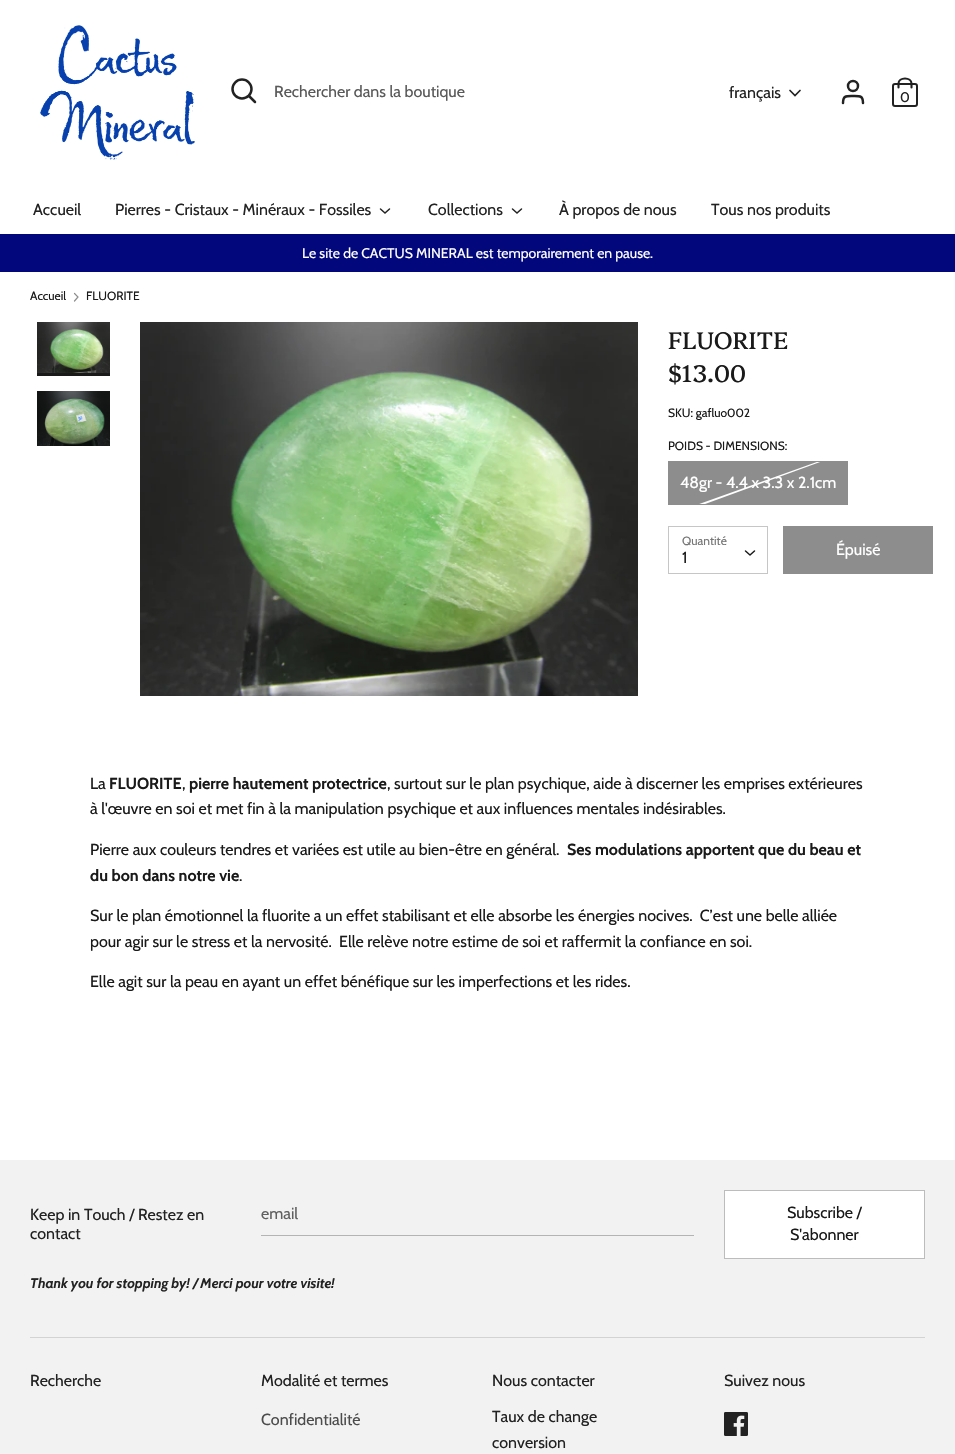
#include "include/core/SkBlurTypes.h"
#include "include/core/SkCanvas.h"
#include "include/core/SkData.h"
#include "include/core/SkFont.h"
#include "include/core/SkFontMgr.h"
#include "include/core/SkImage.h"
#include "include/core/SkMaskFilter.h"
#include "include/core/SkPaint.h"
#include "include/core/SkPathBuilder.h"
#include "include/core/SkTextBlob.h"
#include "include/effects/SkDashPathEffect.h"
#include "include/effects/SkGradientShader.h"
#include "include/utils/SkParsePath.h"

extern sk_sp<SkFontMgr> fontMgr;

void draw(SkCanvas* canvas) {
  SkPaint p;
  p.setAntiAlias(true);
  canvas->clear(SK_ColorWHITE);
  canvas->drawImageRect(SkImages::DeferredFromEncodedData(SkData::MakeFromFileName("images/1.png")), SkRect::MakeLTRB(40, 25, 195, 160), SkSamplingOptions());
  p.setStyle(SkPaint::kStroke_Style);
  p.setStrokeWidth(2.5f);
  p.setColor(SkColorSetRGB(34, 34, 34));
  canvas->drawCircle(242, 89, 9.5f, p);
  p.setStrokeCap(SkPaint::kRound_Cap);
  canvas->drawPath(SkPathBuilder().moveTo(255, 102).lineTo(249, 96).detach(), p);
  p.setStrokeWidth(1.7f);
  canvas->drawPath(SkPathBuilder().moveTo(790, 90.5f).lineTo(795, 95.5f).lineTo(800, 90.5f).detach(), p);
  p.setStrokeWidth(2.5f);
  canvas->drawPath(SkPathBuilder().moveTo(863, 103).cubicTo(863, 95.5f, 860, 96, 853, 96).cubicTo(846, 96, 843, 95.5f, 843, 103).detach(), p);
  p.setStrokeCap(SkPaint::kButt_Cap);
  canvas->drawCircle(853, 86, 5, p);
  p.setStrokeWidth(2);
  canvas->drawRoundRect(SkRect::MakeLTRB(893, 84, 917, 106), 2, 2, p);
  p.setStrokeWidth(2.1f);
  p.setStrokeCap(SkPaint::kRound_Cap);
  canvas->drawPath(SkPathBuilder().moveTo(898.5f, 87.5f).lineTo(898.5f, 83.5f).cubicTo(898.5f, 80.5f, 901.5f, 78.5f, 905, 78.5f).cubicTo(908.5f, 78.5f, 911.5f, 80.5f, 911.5f, 83.5f).lineTo(911.5f, 87.5f).detach(), p);
  p.setStrokeWidth(1.5f);
  canvas->drawPath(SkPathBuilder().moveTo(380.5f, 209).lineTo(385, 213).lineTo(389.5f, 209).detach(), p);
  canvas->drawPath(SkPathBuilder().moveTo(512.5f, 209).lineTo(517, 213).lineTo(521.5f, 209).detach(), p);
  p.setStyle(SkPaint::kFill_Style);
  p.setColor(SkColorSetRGB(2, 8, 124));
  canvas->drawRect(SkRect::MakeLTRB(0, 234, 955, 272), p);
  p.setStyle(SkPaint::kStroke_Style);
  p.setStrokeWidth(1.2f);
  p.setColor(SkColorSetRGB(141, 141, 141));
  canvas->drawPath(SkPathBuilder().moveTo(74.5f, 301).lineTo(78, 297).lineTo(74.5f, 293.5f).detach(), p);
  canvas->drawImageRect(SkImages::DeferredFromEncodedData(SkData::MakeFromFileName("images/2.png")), SkRect::MakeLTRB(37, 322, 110, 373), SkSamplingOptions());
  p.setStyle(SkPaint::kFill_Style);
  p.setColor(SkColorSetRGB(26, 26, 26));
  canvas->drawRect(SkRect::MakeLTRB(37, 373, 110, 376), p);
  canvas->drawImageRect(SkImages::DeferredFromEncodedData(SkData::MakeFromFileName("images/3.png")), SkRect::MakeLTRB(37, 391, 110, 446), SkSamplingOptions());
  canvas->drawImageRect(SkImages::DeferredFromEncodedData(SkData::MakeFromFileName("images/4.png")), SkRect::MakeLTRB(140, 322, 638, 696), SkSamplingOptions());
  p.setColor(SkColorSetRGB(141, 141, 141));
  canvas->drawRect(SkRect::MakeLTRB(668, 461, 848, 505), p);
  canvas->save();
  canvas->clipRect(SkRect::MakeLTRB(669, 462, 847, 504));
  p.setColor(SK_ColorWHITE);
  canvas->drawPath(SkPathBuilder().moveTo(674, 513).lineTo(842, 453).lineTo(842, 454).lineTo(675, 515).close().detach(), p);
  canvas->restore();
  p.setStyle(SkPaint::kStroke_Style);
  p.setStrokeWidth(1);
  p.setStrokeCap(SkPaint::kButt_Cap);
  p.setColor(SkColorSetRGB(198, 198, 198));
  canvas->drawRect(SkRect::MakeLTRB(668.5f, 526.5f, 767.5f, 573.5f), p);
  p.setStrokeWidth(1.5f);
  p.setStrokeCap(SkPaint::kRound_Cap);
  p.setStrokeJoin(SkPaint::kRound_Join);
  p.setColor(SkColorSetRGB(26, 26, 26));
  canvas->drawPath(SkPathBuilder().moveTo(745.5f, 551).lineTo(750, 555).lineTo(754.5f, 551).detach(), p);
  p.setStrokeWidth(1);
  p.setStrokeCap(SkPaint::kButt_Cap);
  p.setStrokeJoin(SkPaint::kMiter_Join);
  p.setColor(SkColorSetRGB(141, 141, 141));
  canvas->drawRect(SkRect::MakeLTRB(783.5f, 526.5f, 932.5f, 573.5f), p);
  p.setStyle(SkPaint::kFill_Style);
  canvas->drawRect(SkRect::MakeLTRB(784, 527, 932, 573), p);
  p.setColor(SkColorSetRGB(242, 242, 242));
  canvas->drawRect(SkRect::MakeLTRB(0, 1160, 955, 1454), p);
  p.setColor(SkColorSetRGB(180, 180, 180));
  canvas->drawRect(SkRect::MakeLTRB(261, 1235, 694, 1236), p);
  p.setStyle(SkPaint::kStroke_Style);
  p.setColor(SkColorSetRGB(188, 188, 188));
  canvas->drawRect(SkRect::MakeLTRB(724.5f, 1190.5f, 924.5f, 1258.5f), p);
  p.setStyle(SkPaint::kFill_Style);
  p.setColor(SK_ColorWHITE);
  canvas->drawRect(SkRect::MakeLTRB(725, 1191, 924, 1258), p);
  p.setColor(SkColorSetRGB(211, 211, 211));
  canvas->drawRect(SkRect::MakeLTRB(30, 1337, 925, 1338), p);
  canvas->drawImageRect(SkImages::DeferredFromEncodedData(SkData::MakeFromFileName("images/5.png")), SkRect::MakeLTRB(724, 1412, 748, 1436), SkSamplingOptions());
  SkFont font1(fontMgr->matchFamilyStyle("Cabin", SkFontStyle::Normal()), 16);
  font1.setSubpixel(true);
  p.setColor(SkColorSetRGB(89, 89, 89));
  canvas->drawString("Rechercher dans la boutique", 274, 97, font1, p);
  p.setColor(SkColorSetRGB(34, 34, 34));
  canvas->drawString("français", 729, 98, font1, p);
  SkFont font2(fontMgr->matchFamilyStyle("Cabin", SkFontStyle::Normal()), 14);
  font2.setSubpixel(true);
  canvas->drawString("0", 900, 102, font2, p);
  canvas->drawString("Accueil", 33, 215, font1, p);
  canvas->drawString("Pierres - Cristaux - Minéraux - Fossiles", 115, 215, font1, p);
  canvas->drawString("Collections", 428, 215, font1, p);
  canvas->drawString("À propos de nous", 559, 215, font1, p);
  canvas->drawString("Tous nos produits", 711, 215, font1, p);
  p.setColor(SK_ColorWHITE);
  canvas->drawString("Le site de CACTUS MINERAL est temporairement en pause.", 302, 258, font2, p);
  SkFont font3(fontMgr->matchFamilyStyle("Cabin", SkFontStyle::Normal()), 12);
  font3.setSubpixel(true);
  p.setColor(SkColorSetRGB(26, 26, 26));
  canvas->drawString("Accueil", 30, 300, font3, p);
  canvas->drawString("FLUORITE", 86, 300, font3, p);
  SkFont font4(fontMgr->matchFamilyStyle("Platypi", SkFontStyle::Normal()), 24);
  font4.setSubpixel(true);
  canvas->drawString("FLUORITE", 668, 349, font4, p);
  canvas->drawString("$13.00", 668, 382, font4, p);
  canvas->drawString("SKU: gafluo002", 668, 417, font3, p);
  canvas->drawString("POIDS - DIMENSIONS:", 668, 450, font3, p);
  p.setColor(SK_ColorWHITE);
  canvas->drawString("48gr - 4.4 x 3.3 x 2.1cm", 680, 488, font1, p);
  p.setColor(SkColorSetRGB(118, 118, 118));
  canvas->drawString("Quantité", 682, 545, font3, p);
  p.setColor(SkColorSetRGB(26, 26, 26));
  canvas->drawString("1", 682, 563, font1, p);
  p.setColor(SK_ColorWHITE);
  canvas->drawString("Épuisé", 836, 555, font1, p);
  p.setColor(SkColorSetRGB(26, 26, 26));
  canvas->drawString("La", 90, 789, font1, p);
  SkFont font5(fontMgr->matchFamilyStyle("Cabin", SkFontStyle::Bold()), 16);
  font5.setSubpixel(true);
  canvas->drawString("FLUORITE", 109, 789, font5, p);
  canvas->drawString(",", 182, 789, font1, p);
  canvas->drawString("pierre hautement protectrice", 189, 789, font5, p);
  canvas->drawString(", surtout sur le plan psychique, aide à discerner les emprises extérieures", 387, 789, font1, p);
  canvas->drawString("à l'œuvre en soi et met fin à la manipulation psychique et aux influences mentales indésirables.", 90, 814, font1, p);
  canvas->drawString("Pierre aux couleurs tendres et variées est utile au bien-être en général.", 90, 855, font1, p);
  canvas->drawString("Ses modulations apportent que du beau et", 567, 855, font5, p);
  canvas->drawString("du bon dans notre vie", 90, 881, font5, p);
  canvas->drawString(".", 239, 881, font1, p);
  canvas->drawString("Sur le plan émotionnel la fluorite a un effet stabilisant et elle absorbe les énergies nocives.  C’est une belle alliée", 90, 921, font1, p);
  canvas->drawString("pour agir sur le stress et la nervosité.  Elle relève notre estime de soi et raffermit la confiance en soi.", 90, 947, font1, p);
  canvas->drawString("Elle agit sur la peau en ayant un effet bénéfique sur les imperfections et les rides.", 90, 987, font1, p);
  p.setColor(SkColorSetRGB(34, 34, 34));
  canvas->drawString("Keep in Touch / Restez en", 30, 1220, font1, p);
  canvas->drawString("contact", 30, 1239, font1, p);
  p.setColor(SkColorSetRGB(96, 96, 96));
  canvas->drawString("email", 261, 1219, font1, p);
  p.setColor(SkColorSetRGB(26, 26, 26));
  canvas->drawString("Subscribe /", 787, 1218, font1, p);
  canvas->drawString("S'abonner", 790, 1240, font1, p);
  SkFont font6(fontMgr->matchFamilyStyle("Cabin", SkFontStyle::BoldItalic()), 14);
  font6.setSubpixel(true);
  p.setColor(SkColorSetRGB(34, 34, 34));
  canvas->drawString("Thank you for stopping by! / Merci pour votre visite!", 30, 1288, font6, p);
  canvas->drawString("Recherche", 30, 1386, font1, p);
  canvas->drawString("Modalité et termes", 261, 1386, font1, p);
  p.setColor(SkColorSetRGB(76, 76, 76));
  canvas->drawString("Confidentialité", 261, 1425, font1, p);
  p.setColor(SkColorSetRGB(34, 34, 34));
  canvas->drawString("Nous contacter", 492, 1386, font1, p);
  canvas->drawString("Taux de change", 492, 1422, font1, p);
  canvas->drawString("conversion", 492, 1448, font1, p);
  canvas->drawString("Suivez nous", 724, 1386, font1, p);
}
